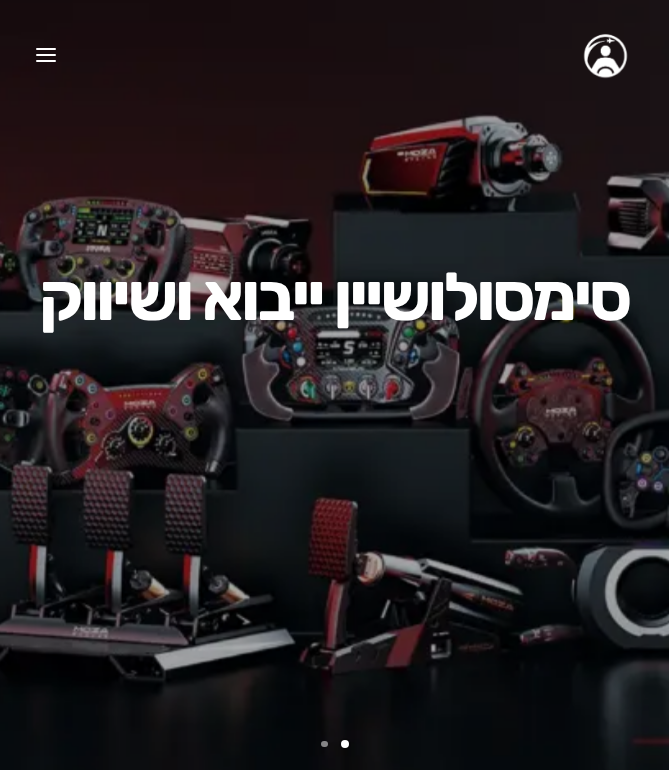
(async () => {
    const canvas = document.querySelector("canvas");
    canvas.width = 669;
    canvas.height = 770;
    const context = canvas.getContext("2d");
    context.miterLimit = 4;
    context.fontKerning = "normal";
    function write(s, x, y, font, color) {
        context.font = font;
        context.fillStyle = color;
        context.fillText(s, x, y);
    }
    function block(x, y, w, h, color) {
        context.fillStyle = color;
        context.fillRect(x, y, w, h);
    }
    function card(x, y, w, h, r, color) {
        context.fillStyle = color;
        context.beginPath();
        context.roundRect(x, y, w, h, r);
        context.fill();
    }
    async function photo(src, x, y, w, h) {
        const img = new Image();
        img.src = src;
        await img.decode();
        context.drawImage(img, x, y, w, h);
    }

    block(0, 0, 669, 770, "rgb(255, 255, 255)");
    await photo("media/2.png", 0, 0, 669, 770);
    await photo("media/1.png", 583, 33, 45, 46);
    card(36, 54, 20, 2, 1, "rgb(255, 255, 255)");
    card(36, 48, 20, 2, 1, "rgb(255, 255, 255)");
    card(36, 60, 20, 2, 1, "rgb(255, 255, 255)");
    context.letterSpacing = "-3.3px";
    context.direction = "rtl";
    write("סימסולושיין ייבוא ושיווק", 629, 320, "bold 66.75px Rubik", "rgb(255, 255, 255)");
    context.beginPath();
    context.arc(345, 744, 5, 0, Math.PI * 2);
    context.strokeStyle = "rgba(0, 0, 0, 0.2)";
    context.lineWidth = 2;
    context.stroke();
    context.beginPath();
    context.arc(345, 744, 4, 0, Math.PI * 2);
    context.fill();
    card(321, 741, 7, 6, 3, "rgba(255, 255, 255, 0.5)");
})();
